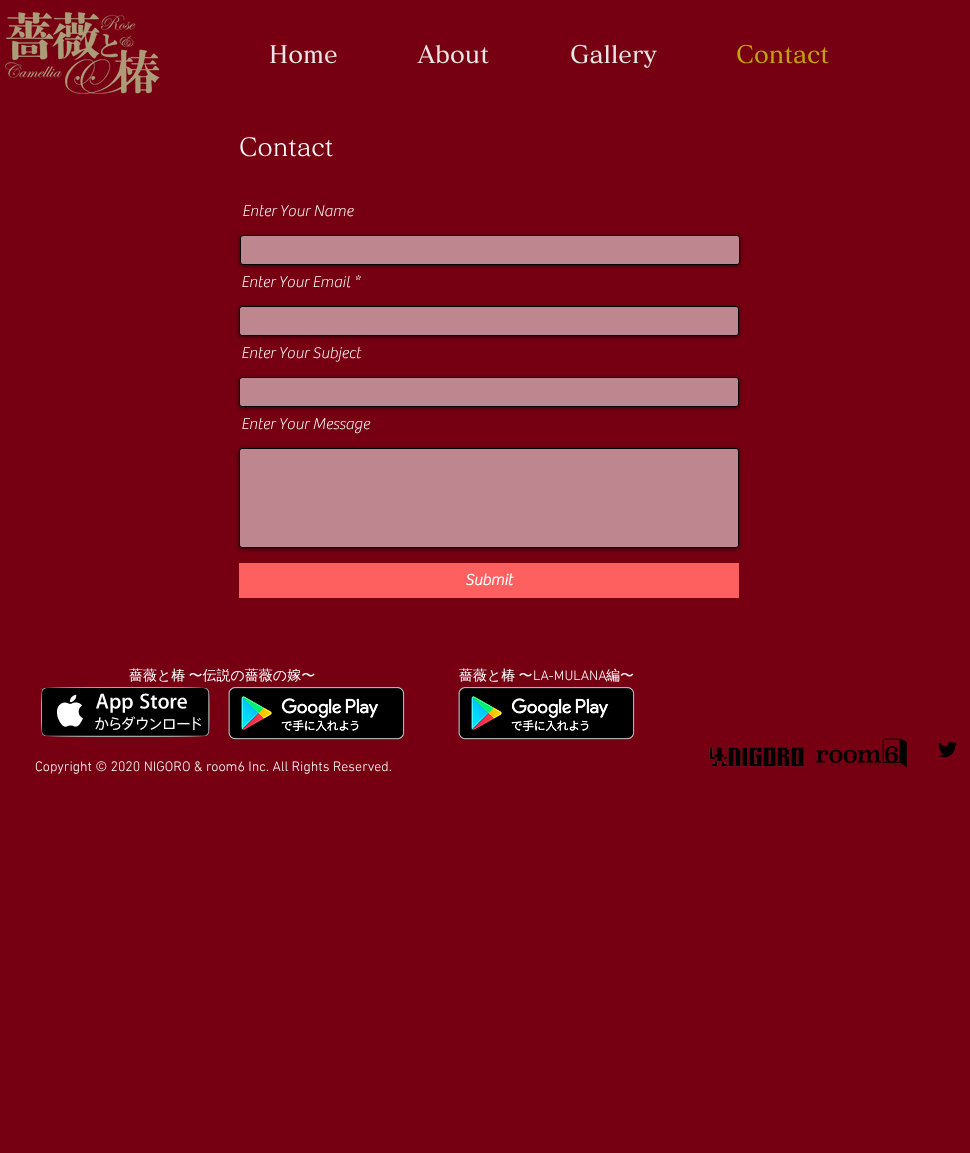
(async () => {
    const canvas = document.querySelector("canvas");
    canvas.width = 970;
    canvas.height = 1153;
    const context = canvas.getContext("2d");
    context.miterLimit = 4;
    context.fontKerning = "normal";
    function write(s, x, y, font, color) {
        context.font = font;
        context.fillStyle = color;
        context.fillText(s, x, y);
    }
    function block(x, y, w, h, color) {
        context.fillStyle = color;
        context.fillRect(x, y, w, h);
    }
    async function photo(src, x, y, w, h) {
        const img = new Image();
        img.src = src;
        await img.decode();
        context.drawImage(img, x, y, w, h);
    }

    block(0, 0, 970, 1153, "rgb(118, 0, 18)");
    await photo("media/1.png", 5, 12, 155, 82);
    write("Home", 269, 63, "600 24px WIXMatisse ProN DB", "rgb(232, 230, 230)");
    write("About", 418, 63, "600 24px WIXMatisse ProN DB", "rgb(232, 230, 230)");
    write("Gallery", 570, 63, "600 24px WIXMatisse ProN DB", "rgb(232, 230, 230)");
    write("Contact", 736, 63, "600 24px WIXMatisse ProN DB", "rgb(194, 164, 14)");
    write("Contact", 239, 156, "500 25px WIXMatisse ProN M", "rgb(255, 255, 255)");
    write("Enter Your Name", 242, 216, "100 16px 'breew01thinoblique'", "rgb(255, 255, 255)");
    context.save();
    context.beginPath();
    context.moveTo(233, 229);
    context.lineTo(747, 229);
    context.lineTo(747, 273);
    context.lineTo(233, 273);
    context.closePath();
    context.moveTo(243, 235);
    context.lineTo(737, 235);
    context.bezierCurveTo(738.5, 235, 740, 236.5, 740, 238);
    context.lineTo(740, 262);
    context.bezierCurveTo(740, 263.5, 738.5, 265, 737, 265);
    context.lineTo(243, 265);
    context.bezierCurveTo(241.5, 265, 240, 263.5, 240, 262);
    context.lineTo(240, 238);
    context.bezierCurveTo(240, 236.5, 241.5, 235, 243, 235);
    context.closePath();
    context.clip("evenodd");
    context.fillStyle = "rgba(0, 0, 0, 0.6)";
    context.filter = "blur(2px)";
    context.beginPath();
    context.roundRect(240, 236, 500, 30, 3);
    context.fill();
    context.filter = "none";
    context.restore();
    context.fillStyle = "rgba(255, 255, 255, 0.53)";
    context.beginPath();
    context.roundRect(240.5, 235.5, 499, 29, 2.5);
    context.fill();
    context.strokeStyle = "rgb(0, 0, 0)";
    context.stroke();
    write("Enter Your Email *", 241, 287, "100 16px 'breew01thinoblique'", "rgb(255, 255, 255)");
    context.save();
    context.beginPath();
    context.moveTo(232, 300);
    context.lineTo(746, 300);
    context.lineTo(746, 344);
    context.lineTo(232, 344);
    context.closePath();
    context.moveTo(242, 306);
    context.lineTo(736, 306);
    context.bezierCurveTo(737.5, 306, 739, 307.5, 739, 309);
    context.lineTo(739, 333);
    context.bezierCurveTo(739, 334.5, 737.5, 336, 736, 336);
    context.lineTo(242, 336);
    context.bezierCurveTo(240.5, 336, 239, 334.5, 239, 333);
    context.lineTo(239, 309);
    context.bezierCurveTo(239, 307.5, 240.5, 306, 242, 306);
    context.closePath();
    context.clip("evenodd");
    context.fillStyle = "rgba(0, 0, 0, 0.6)";
    context.filter = "blur(2px)";
    context.beginPath();
    context.roundRect(239, 307, 500, 30, 3);
    context.fill();
    context.filter = "none";
    context.restore();
    context.fillStyle = "rgba(255, 255, 255, 0.53)";
    context.beginPath();
    context.roundRect(239.5, 306.5, 499, 29, 2.5);
    context.fill();
    context.stroke();
    write("Enter Your Subject", 241, 358, "100 16px 'breew01thinoblique'", "rgb(255, 255, 255)");
    context.save();
    context.beginPath();
    context.moveTo(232, 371);
    context.lineTo(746, 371);
    context.lineTo(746, 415);
    context.lineTo(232, 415);
    context.closePath();
    context.moveTo(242, 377);
    context.lineTo(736, 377);
    context.bezierCurveTo(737.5, 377, 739, 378.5, 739, 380);
    context.lineTo(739, 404);
    context.bezierCurveTo(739, 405.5, 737.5, 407, 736, 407);
    context.lineTo(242, 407);
    context.bezierCurveTo(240.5, 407, 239, 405.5, 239, 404);
    context.lineTo(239, 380);
    context.bezierCurveTo(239, 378.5, 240.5, 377, 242, 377);
    context.closePath();
    context.clip("evenodd");
    context.fillStyle = "rgba(0, 0, 0, 0.6)";
    context.filter = "blur(2px)";
    context.beginPath();
    context.roundRect(239, 378, 500, 30, 3);
    context.fill();
    context.filter = "none";
    context.restore();
    context.fillStyle = "rgba(255, 255, 255, 0.53)";
    context.beginPath();
    context.roundRect(239.5, 377.5, 499, 29, 2.5);
    context.fill();
    context.stroke();
    write("Enter Your Message", 241, 429, "100 16px 'breew01thinoblique'", "rgb(255, 255, 255)");
    context.save();
    context.beginPath();
    context.moveTo(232, 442);
    context.lineTo(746, 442);
    context.lineTo(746, 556);
    context.lineTo(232, 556);
    context.closePath();
    context.moveTo(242, 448);
    context.lineTo(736, 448);
    context.bezierCurveTo(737.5, 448, 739, 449.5, 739, 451);
    context.lineTo(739, 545);
    context.bezierCurveTo(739, 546.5, 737.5, 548, 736, 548);
    context.lineTo(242, 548);
    context.bezierCurveTo(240.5, 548, 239, 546.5, 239, 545);
    context.lineTo(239, 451);
    context.bezierCurveTo(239, 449.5, 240.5, 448, 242, 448);
    context.closePath();
    context.clip("evenodd");
    context.fillStyle = "rgba(0, 0, 0, 0.6)";
    context.filter = "blur(2px)";
    context.beginPath();
    context.roundRect(239, 449, 500, 100, 3);
    context.fill();
    context.filter = "none";
    context.restore();
    context.fillStyle = "rgba(255, 255, 255, 0.53)";
    context.beginPath();
    context.roundRect(239.5, 448.5, 499, 99, 2.5);
    context.fill();
    context.stroke();
    block(239, 563, 500, 35, "rgb(254, 96, 96)");
    write("Submit", 465, 585, "bold 16px 'breew01thinoblique'", "rgb(255, 255, 255)");
    context.wordSpacing = "-1px";
    write("薔薇と椿 〜伝説の薔薇の嫁〜", 129, 680, "500 14px WenQuanYi Zen Hei", "rgb(255, 255, 255)");
    write("薔薇と椿 〜", 459, 680, "500 14px WenQuanYi Zen Hei", "rgb(255, 255, 255)");
    context.wordSpacing = "0px";
    write("LA-MULANA", 533, 680, "300 14px 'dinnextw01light'", "rgb(255, 255, 255)");
    write("編〜", 606, 680, "500 14px WenQuanYi Zen Hei", "rgb(255, 255, 255)");
    await photo("media/2.png", 41, 687, 169, 50);
    await photo("media/3.png", 228, 686, 177, 54);
    await photo("media/3.png", 458, 686, 177, 54);
    write("Copyright © 2020 NIGORO & room6 Inc. All Rights Reserved.", 35, 771, "300 14px 'dinnextw01light'", "rgb(255, 255, 255)");
    await photo("media/4.png", 709, 747, 95, 20);
    await photo("media/5.png", 816, 738, 91, 31);
    await photo("media/6.png", 938, 741, 19, 17);
})();
